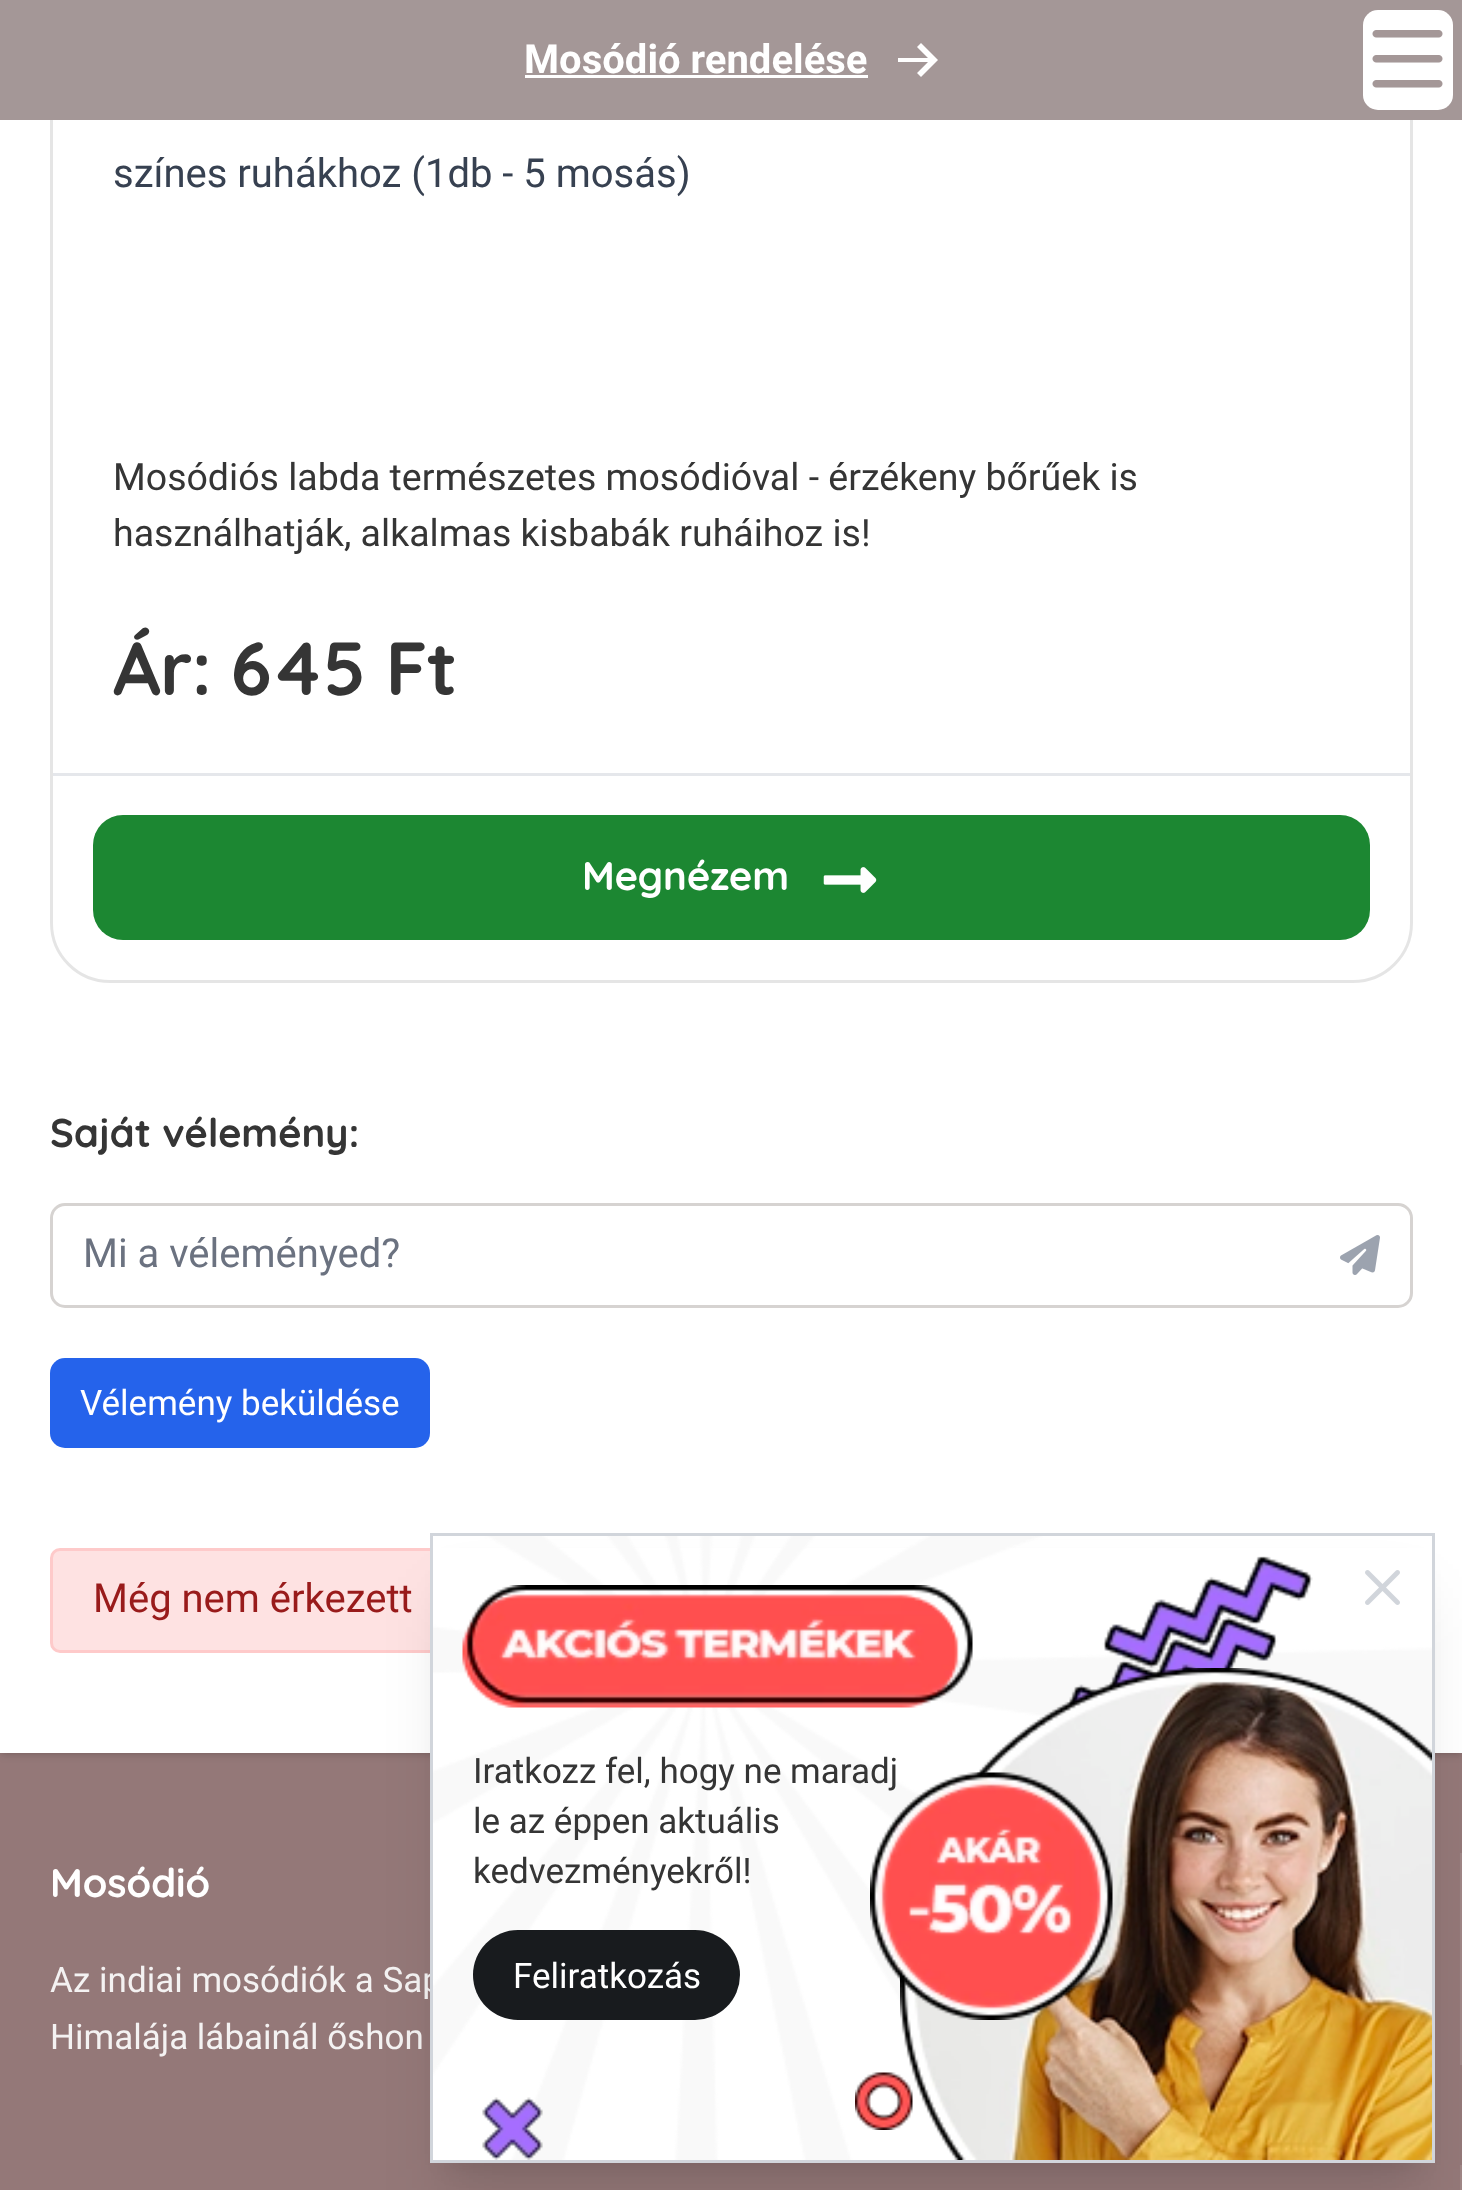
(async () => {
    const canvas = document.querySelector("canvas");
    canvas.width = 1462;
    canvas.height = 2190;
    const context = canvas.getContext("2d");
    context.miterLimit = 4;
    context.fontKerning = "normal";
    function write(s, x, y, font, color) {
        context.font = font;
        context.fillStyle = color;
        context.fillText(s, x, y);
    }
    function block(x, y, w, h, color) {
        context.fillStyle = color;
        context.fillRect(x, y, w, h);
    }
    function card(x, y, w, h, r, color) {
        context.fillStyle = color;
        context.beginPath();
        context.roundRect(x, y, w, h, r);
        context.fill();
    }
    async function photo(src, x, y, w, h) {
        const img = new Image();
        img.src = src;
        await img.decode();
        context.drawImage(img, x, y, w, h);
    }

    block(0, 0, 1462, 2190, "rgb(148, 120, 120)");
    context.fillStyle = "rgba(0, 0, 0, 0.1)";
    context.filter = "blur(2.5px)";
    context.beginPath();
    context.rect(3, -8, 1457, 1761);
    context.fill();
    context.filter = "none";
    context.filter = "blur(4px)";
    context.beginPath();
    context.rect(0, -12, 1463, 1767);
    context.fill();
    context.filter = "none";
    block(0, 120, 1462, 1633, "rgb(255, 255, 255)");
    context.beginPath();
    context.roundRect(51.5, -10.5, 1360, 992, 58.5);
    context.strokeStyle = "rgba(0, 0, 0, 0.1)";
    context.lineWidth = 3;
    context.stroke();
    block(0, 0, 1462, 120, "rgb(164, 151, 151)");
    write("Mosódió rendelése", 524, 73, "bold 40px Roboto", "rgb(255, 255, 255)");
    block(525, 75, 343, 3, "rgb(255, 255, 255)");
    context.beginPath();
    context.moveTo(921, 43);
    context.lineTo(917, 47);
    context.lineTo(928, 58);
    context.lineTo(898, 58);
    context.lineTo(898, 62);
    context.lineTo(928, 62);
    context.lineTo(917, 73);
    context.lineTo(921, 77);
    context.lineTo(938, 60);
    context.closePath();
    context.fill();
    card(1363, 10, 90, 100, 15, "rgb(255, 255, 255)");
    await photo("media/1.png", 1372, 30, 71, 58);
    write("színes ruhákhoz (1db - 5 mosás)", 113, 187, "40px Roboto", "rgb(55, 65, 81)");
    write("Mosódiós labda természetes mosódióval - érzékeny bőrűek is", 113, 490, "37.5px Roboto", "rgb(53, 53, 53)");
    write("használhatják, alkalmas kisbabák ruháihoz is!", 113, 546, "37.5px Roboto", "rgb(53, 53, 53)");
    context.letterSpacing = "-1px";
    write("Ár: 645 Ft", 113, 695, "bold 75px Quicksand", "rgb(53, 53, 53)");
    block(53, 773, 1357, 3, "rgb(229, 231, 235)");
    card(93, 815, 1277, 125, 30, "rgb(28, 135, 50)");
    context.letterSpacing = "0px";
    write("Megnézem", 582, 890, "bold 40px Quicksand", "rgb(255, 255, 255)");
    await photo("media/2.png", 823, 867, 54, 26);
    write("Saját vélemény:", 50, 1147, "bold 40px Quicksand", "rgb(53, 53, 53)");
    context.beginPath();
    context.roundRect(51.5, 1204.5, 1360, 102, 13.5);
    context.strokeStyle = "rgb(214, 211, 209)";
    context.stroke();
    write("Mi a véleményed?", 83, 1267, "40px Roboto", "rgb(107, 114, 128)");
    await photo("media/3.png", 1340, 1235, 40, 40);
    card(50, 1358, 380, 90, 15, "rgb(37, 99, 235)");
    write("Vélemény beküldése", 80, 1415, "35px Roboto", "rgb(255, 255, 255)");
    context.fillStyle = "rgb(254, 226, 226)";
    context.beginPath();
    context.roundRect(51.5, 1549.5, 870, 102, 8.5);
    context.fill();
    context.strokeStyle = "rgb(254, 202, 202)";
    context.stroke();
    write("Még nem érkezett", 93, 1612, "40px Roboto", "rgb(153, 27, 27)");
    block(1460, 1853, 2, 212, "rgb(159, 134, 134)");
    write("Mosódió", 50, 1897, "bold 40px Quicksand", "rgb(255, 255, 255)");
    write("Az indiai mosódiók a Sap", 50, 1992, "35px Roboto", "rgb(244, 242, 242)");
    write("Himalája lábainál őshon", 50, 2049, "35px Roboto", "rgb(244, 242, 242)");
    block(1460, 2165, 2, 25, "rgb(159, 134, 134)");
    context.fillStyle = "rgba(0, 0, 0, 0.1)";
    context.filter = "blur(12.5px)";
    context.beginPath();
    context.rect(448, 1570, 970, 595);
    context.fill();
    context.filter = "none";
    context.filter = "blur(31px)";
    context.beginPath();
    context.rect(445, 1598, 975, 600);
    context.fill();
    context.filter = "none";
    block(433, 1548, 999, 612, "rgb(255, 255, 255)");
    await photo("media/4.png", 433, 1536, 999, 624);
    context.strokeStyle = "rgb(209, 213, 219)";
    context.strokeRect(431.5, 1534.5, 1002, 627);
    await photo("media/5.png", 462, 1585, 511, 123);
    await photo("media/6.png", 1067, 1556, 246, 150);
    await photo("media/7.png", 1365, 1570, 35, 35);
    write("Iratkozz fel, hogy ne maradj", 473, 1783, "35px Roboto", "rgb(53, 53, 53)");
    write("le az éppen aktuális", 473, 1833, "35px Roboto", "rgb(53, 53, 53)");
    write("kedvezményekről!", 473, 1883, "35px Roboto", "rgb(53, 53, 53)");
    await photo("media/8.png", 900, 1668, 532, 492);
    card(473, 1930, 267, 90, 45, "rgb(24, 27, 30)");
    write("Feliratkozás", 513, 1988, "35px Roboto", "rgb(255, 255, 255)");
    await photo("media/9.png", 870, 1772, 243, 248);
    await photo("media/10.png", 482, 2097, 61, 63);
    await photo("media/11.png", 855, 2072, 58, 58);
})();
